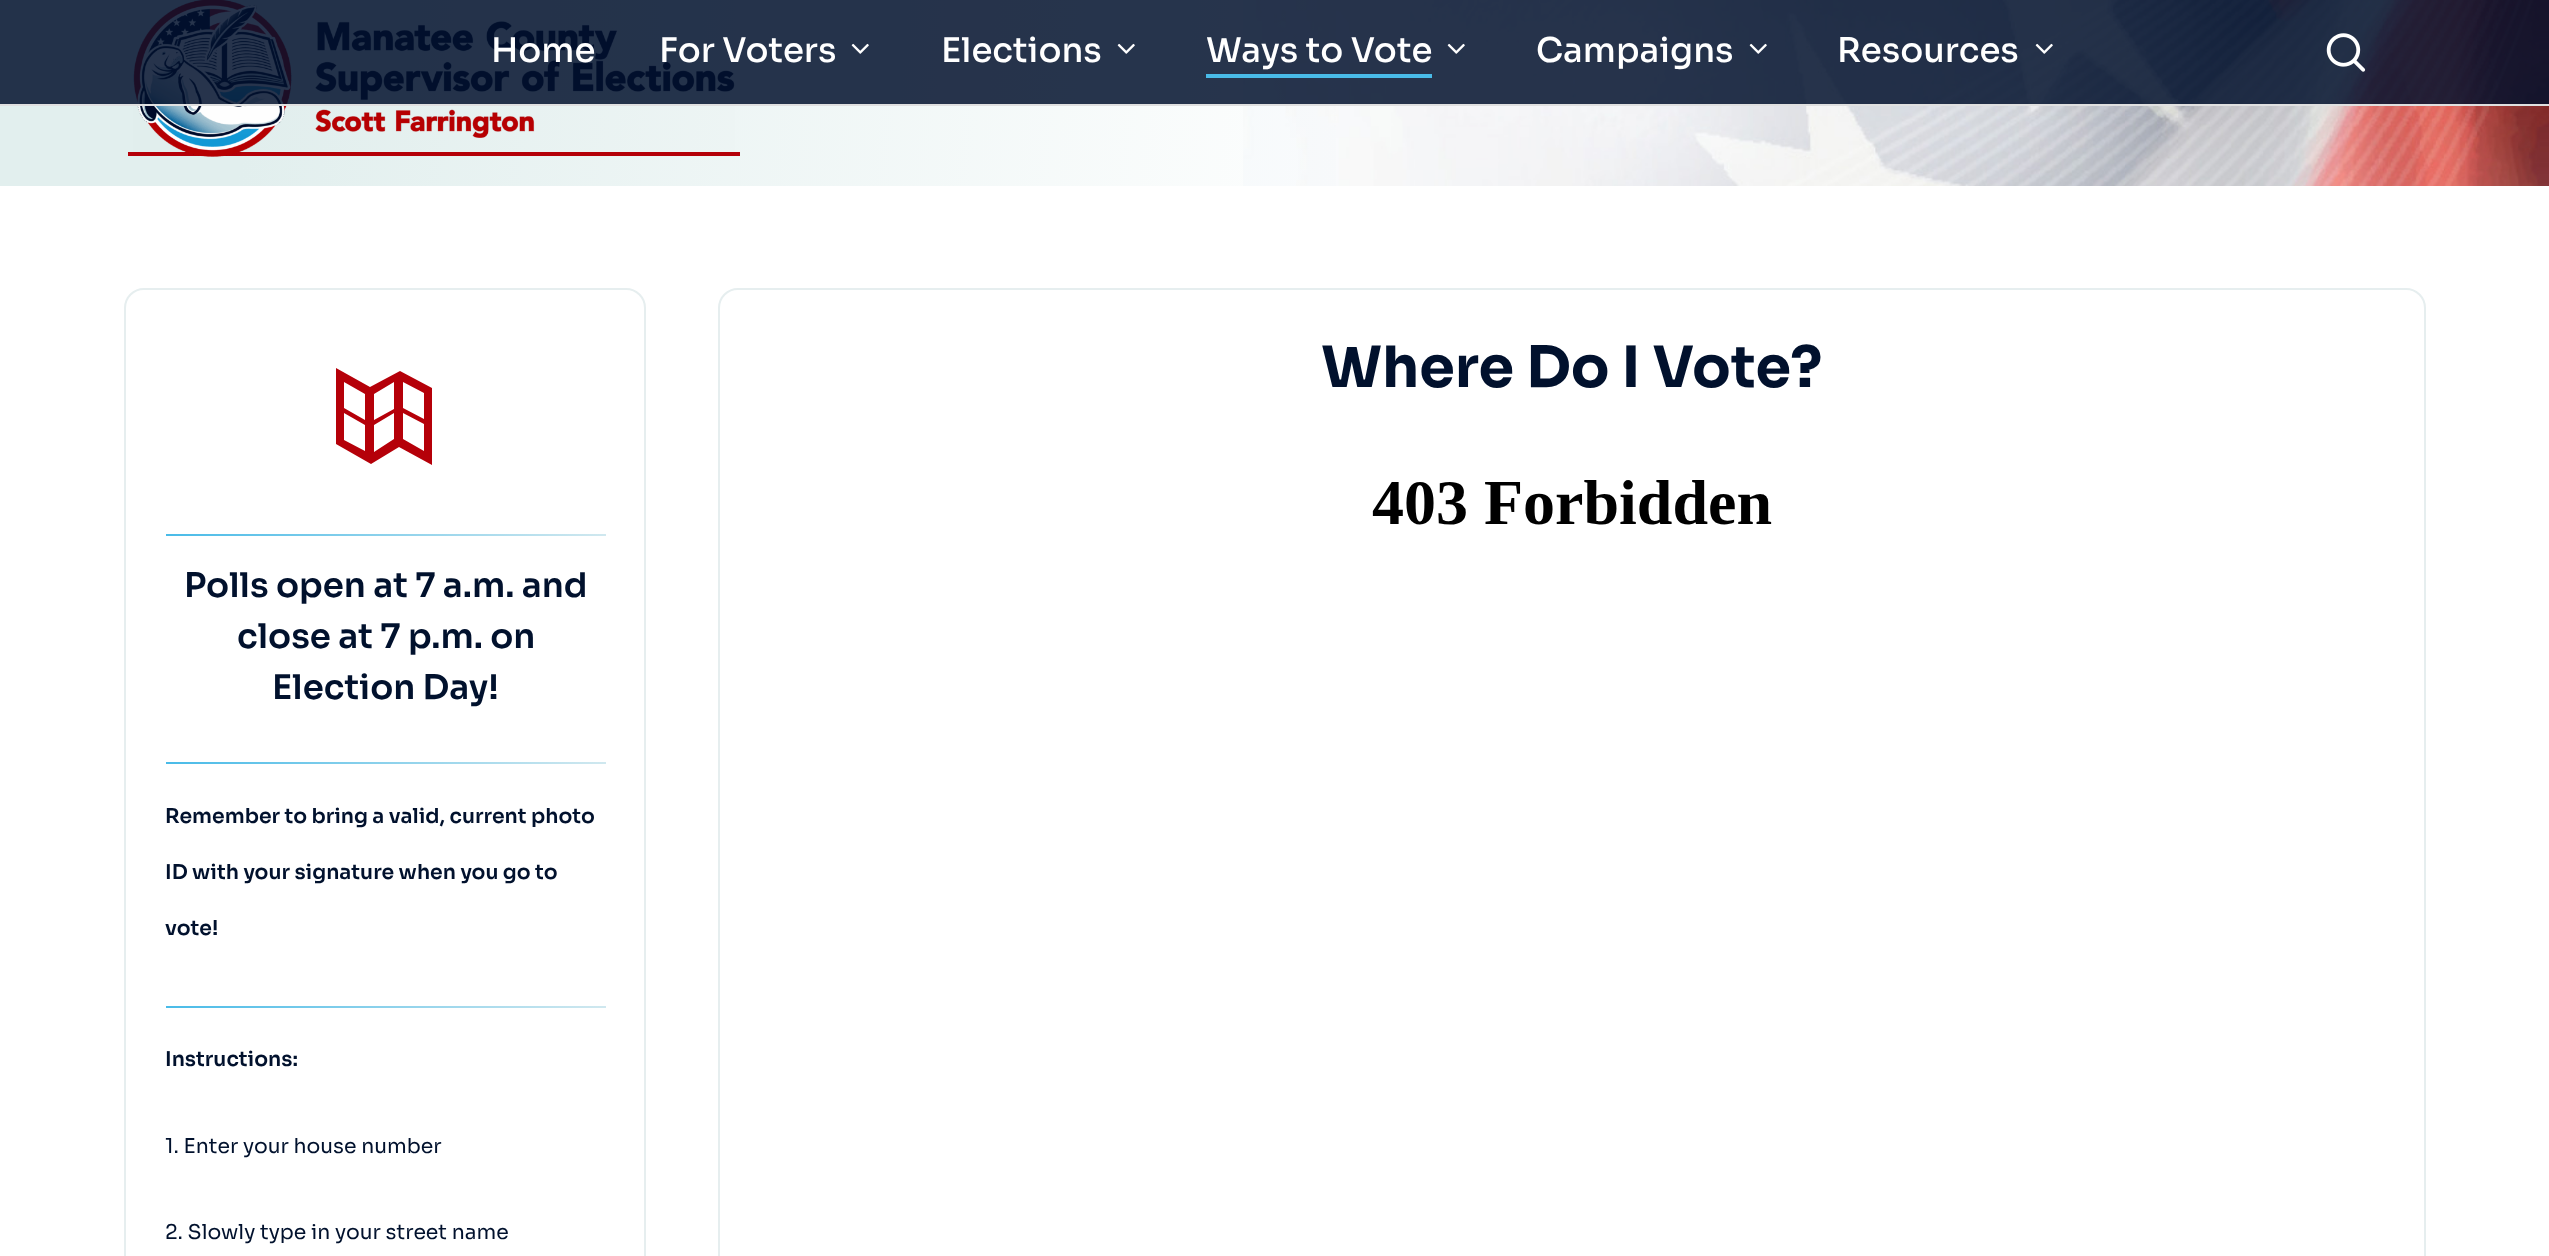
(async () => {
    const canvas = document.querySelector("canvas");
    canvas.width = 2549;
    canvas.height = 1256;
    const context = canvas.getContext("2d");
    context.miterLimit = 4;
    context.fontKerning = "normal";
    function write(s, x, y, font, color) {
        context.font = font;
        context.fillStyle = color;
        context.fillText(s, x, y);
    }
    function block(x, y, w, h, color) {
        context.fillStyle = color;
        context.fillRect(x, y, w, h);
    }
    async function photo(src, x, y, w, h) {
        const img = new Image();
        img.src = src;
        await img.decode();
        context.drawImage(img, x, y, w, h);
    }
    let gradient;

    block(0, 0, 2549, 1256, "rgb(255, 255, 255)");
    await photo("media/7.png", 1243, 0, 1306, 186);
    gradient = context.createLinearGradient(0.2, -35, 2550, 189);
    gradient.addColorStop(0.1, "rgb(226, 239, 238)");
    gradient.addColorStop(0.56, "rgba(226, 239, 238, 0)");
    context.fillStyle = gradient;
    context.fillRect(0, 0, 1336, 186);
    block(128, 152, 612, 4, "rgb(181, 0, 9)");
    await photo("media/8.png", 133, 0, 602, 157);
    block(0, 0, 2549, 104, "rgba(1, 17, 45, 0.85)");
    block(0, 104, 2549, 2, "rgb(224, 224, 224)");
    write("Home", 491, 62, "500 34px Sora", "rgb(255, 255, 255)");
    write("For Voters", 659, 62, "500 34px Sora", "rgb(255, 255, 255)");
    await photo("media/1.png", 851, 43, 18, 11);
    write("Elections", 941, 62, "500 34px Sora", "rgb(255, 255, 255)");
    await photo("media/2.png", 1117, 43, 18, 11);
    write("Ways to Vote", 1206, 62, "500 34px Sora", "rgb(255, 255, 255)");
    block(1206, 74, 226, 4, "rgb(73, 187, 232)");
    await photo("media/3.png", 1447, 43, 18, 11);
    write("Campaigns", 1536, 62, "500 34px Sora", "rgb(255, 255, 255)");
    await photo("media/4.png", 1749, 43, 18, 11);
    write("Resources", 1837, 62, "500 34px Sora", "rgb(255, 255, 255)");
    await photo("media/5.png", 2035, 43, 18, 11);
    await photo("media/6.png", 2326, 33, 40, 39);
    context.beginPath();
    context.roundRect(719, 289, 1706, 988, 19);
    context.strokeStyle = "rgb(230, 238, 239)";
    context.lineWidth = 2;
    context.stroke();
    write("Where Do I Vote?", 1321, 387, "bold 57px Sora", "rgb(1, 17, 45)");
    await photo("media/9.png", 1372, 480, 400, 45);
    context.beginPath();
    context.roundRect(125, 289, 520, 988, 19);
    context.stroke();
    context.fillStyle = "rgb(181, 0, 9)";
    context.beginPath();
    context.moveTo(400, 371);
    context.lineTo(370, 387);
    context.lineTo(336, 368);
    context.lineTo(336, 444);
    context.lineTo(371, 464);
    context.lineTo(399, 447);
    context.lineTo(432, 465);
    context.lineTo(432, 388);
    context.closePath();
    context.moveTo(424, 419);
    context.lineTo(403, 408);
    context.lineTo(403, 382);
    context.lineTo(424, 393);
    context.closePath();
    context.moveTo(374, 394);
    context.lineTo(394, 382);
    context.lineTo(394, 409);
    context.lineTo(374, 420);
    context.closePath();
    context.moveTo(374, 425);
    context.lineTo(394, 413);
    context.lineTo(394, 439);
    context.lineTo(374, 452);
    context.closePath();
    context.moveTo(365, 394);
    context.lineTo(365, 420);
    context.lineTo(344, 408);
    context.lineTo(344, 382);
    context.closePath();
    context.moveTo(344, 413);
    context.lineTo(365, 425);
    context.lineTo(365, 451);
    context.lineTo(344, 440);
    context.closePath();
    context.moveTo(403, 439);
    context.lineTo(403, 413);
    context.lineTo(424, 424);
    context.lineTo(424, 451);
    context.closePath();
    context.fill();
    gradient = context.createLinearGradient(166, 535, 606, 535);
    gradient.addColorStop(0, "rgb(73, 187, 232)");
    gradient.addColorStop(1, "rgb(208, 232, 239)");
    context.fillStyle = gradient;
    context.fillRect(166, 534, 440, 2);
    write("Polls open at 7 a.m. and", 184, 597, "600 34px Sora", "rgb(1, 17, 45)");
    write("close at 7 p.m. on", 237, 648, "600 34px Sora", "rgb(1, 17, 45)");
    write("Election Day!", 272, 699, "600 34px Sora", "rgb(1, 17, 45)");
    gradient = context.createLinearGradient(166, 763, 606, 763);
    gradient.addColorStop(0, "rgb(73, 187, 232)");
    gradient.addColorStop(1, "rgb(208, 232, 239)");
    context.fillStyle = gradient;
    context.fillRect(166, 762, 440, 2);
    write("Remember to bring a valid, current photo", 165, 823, "600 20.4px Sora", "rgb(1, 17, 45)");
    write("ID with your signature when you go to", 165, 879, "600 20.4px Sora", "rgb(1, 17, 45)");
    write("vote!", 165, 935, "600 20.4px Sora", "rgb(1, 17, 45)");
    gradient = context.createLinearGradient(166, 1007, 606, 1007);
    gradient.addColorStop(0, "rgb(73, 187, 232)");
    gradient.addColorStop(1, "rgb(208, 232, 239)");
    context.fillStyle = gradient;
    context.fillRect(166, 1006, 440, 2);
    write("Instructions:", 165, 1066, "600 20.4px Sora", "rgb(1, 17, 45)");
    write("1. Enter your house number", 165, 1153, "20.4px Sora", "rgb(1, 17, 45)");
    write("2. Slowly type in your street name", 165, 1239, "20.4px Sora", "rgb(1, 17, 45)");
})();
